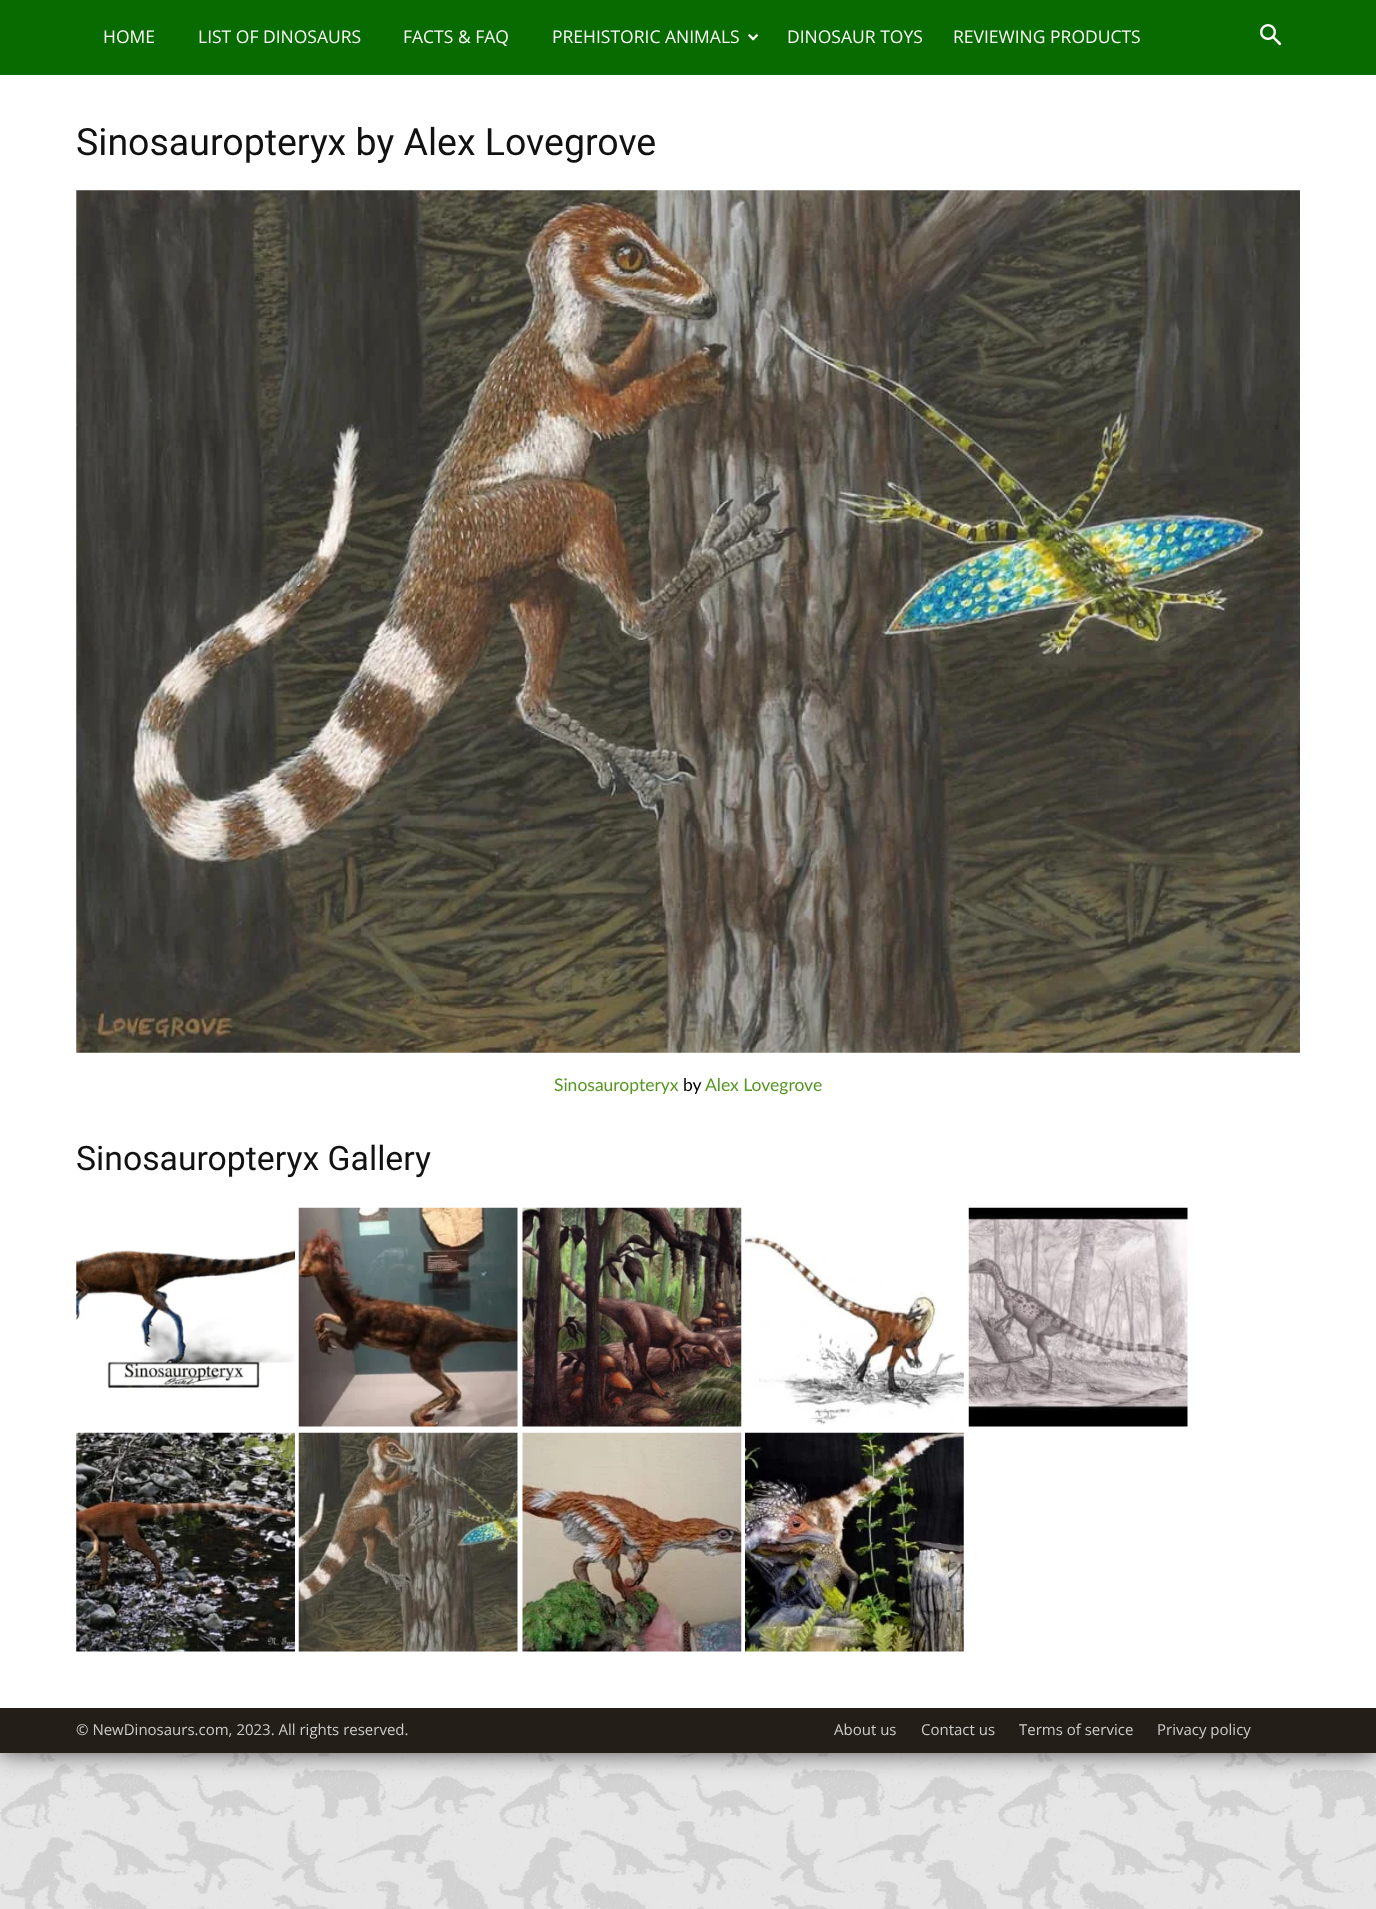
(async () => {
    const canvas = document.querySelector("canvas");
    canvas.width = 1376;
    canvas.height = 1909;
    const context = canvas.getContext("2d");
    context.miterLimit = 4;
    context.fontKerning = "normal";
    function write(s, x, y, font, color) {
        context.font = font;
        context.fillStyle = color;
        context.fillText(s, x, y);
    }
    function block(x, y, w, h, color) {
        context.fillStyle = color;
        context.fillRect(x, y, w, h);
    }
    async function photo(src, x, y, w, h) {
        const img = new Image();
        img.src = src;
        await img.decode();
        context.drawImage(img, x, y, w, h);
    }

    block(0, 0, 1376, 1909, "rgb(255, 255, 255)");
    await photo("media/1.png", 0, 1753, 1376, 156);
    context.fillStyle = "rgba(0, 0, 0, 0.65)";
    context.filter = "blur(12.5px)";
    context.beginPath();
    context.rect(0, -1, 1376, 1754);
    context.fill();
    context.filter = "none";
    block(0, 0, 1376, 75, "rgb(8, 107, 0)");
    write("HOME", 103, 43, "17.5px Open Sans", "rgb(252, 252, 252)");
    write("LIST OF DINOSAURS", 198, 43, "17.5px Open Sans", "rgb(252, 252, 252)");
    write("FACTS & FAQ", 403, 43, "17.5px Open Sans", "rgb(252, 252, 252)");
    write("PREHISTORIC ANIMALS", 552, 43, "17.5px Open Sans", "rgb(252, 252, 252)");
    await photo("media/2.png", 748, 34, 11, 7);
    write("DINOSAUR TOYS", 787, 43, "17.5px Open Sans", "rgb(252, 252, 252)");
    write("REVIEWING PRODUCTS", 953, 43, "17.5px Open Sans", "rgb(252, 252, 252)");
    await photo("media/3.png", 1260, 24, 22, 22);
    block(0, 75, 1376, 1633, "rgb(255, 255, 255)");
    write("Sinosauropteryx by Alex Lovegrove", 76, 155, "37.5px Roboto", "rgb(17, 17, 17)");
    await photo("media/4.png", 76, 190, 1224, 863);
    write("Sinosauropteryx", 554, 1091, "17.5px Lato", "rgb(86, 150, 34)");
    write("by", 683, 1091, "17.5px Lato", "rgb(0, 0, 0)");
    write("Alex Lovegrove", 705, 1091, "17.5px Lato", "rgb(86, 150, 34)");
    write("Sinosauropteryx Gallery", 76, 1170, "33.75px Roboto", "rgb(17, 17, 17)");
    await photo("media/5.png", 76, 1249, 219, 141);
    await photo("media/6.png", 298, 1207, 220, 220);
    await photo("media/7.png", 522, 1207, 220, 220);
    await photo("media/8.png", 745, 1235, 219, 190);
    await photo("media/9.png", 968, 1207, 220, 220);
    await photo("media/10.png", 76, 1432, 219, 220);
    await photo("media/11.png", 298, 1432, 220, 220);
    await photo("media/12.png", 522, 1432, 220, 220);
    await photo("media/13.png", 745, 1432, 219, 220);
    block(0, 1708, 1376, 45, "rgb(35, 30, 24)");
    write("© NewDinosaurs.com, 2023. All rights reserved.", 76, 1735, "15px Open Sans", "rgb(204, 204, 204)");
    write("About us", 834, 1735, "15px Open Sans", "rgb(204, 204, 204)");
    write("Contact us", 921, 1735, "15px Open Sans", "rgb(204, 204, 204)");
    write("Terms of service", 1019, 1735, "15px Open Sans", "rgb(204, 204, 204)");
    write("Privacy policy", 1157, 1735, "15px Open Sans", "rgb(204, 204, 204)");
})();
